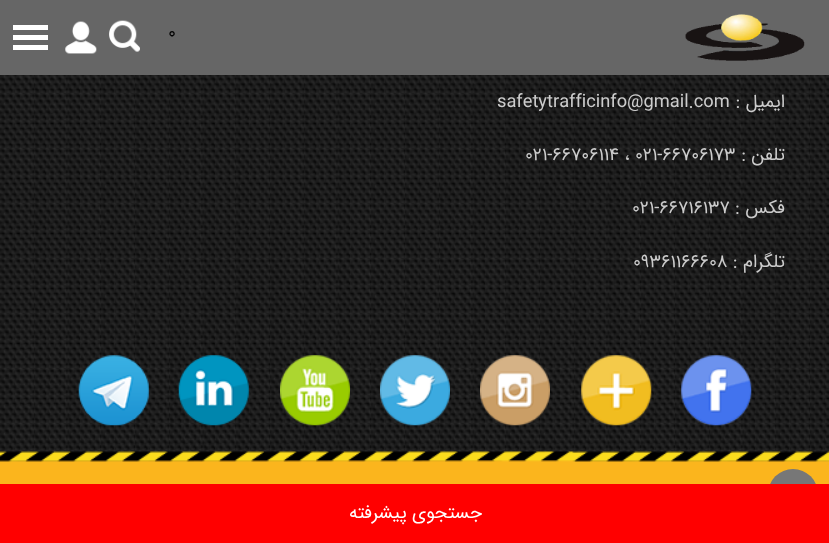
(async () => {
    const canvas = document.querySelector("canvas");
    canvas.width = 829;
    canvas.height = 543;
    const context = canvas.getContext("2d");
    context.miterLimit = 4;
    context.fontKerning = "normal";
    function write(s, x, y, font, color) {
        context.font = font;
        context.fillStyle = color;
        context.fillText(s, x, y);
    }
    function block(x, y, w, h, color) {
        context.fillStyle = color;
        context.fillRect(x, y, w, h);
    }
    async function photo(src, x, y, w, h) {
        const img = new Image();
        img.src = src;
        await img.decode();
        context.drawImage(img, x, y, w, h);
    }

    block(0, 0, 829, 543, "rgb(255, 255, 255)");
    block(0, 0, 829, 75, "rgb(102, 102, 102)");
    await photo("media/1.png", 65, 21, 32, 33);
    await photo("media/2.png", 109, 20, 31, 32);
    block(13, 25, 35, 5, "rgb(255, 255, 255)");
    block(13, 35, 35, 5, "rgb(255, 255, 255)");
    block(13, 45, 35, 5, "rgb(255, 255, 255)");
    write("0", 168, 38, "18.3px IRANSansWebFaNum", "rgb(0, 0, 0)");
    await photo("media/3.png", 685, 14, 120, 47);
    await photo("media/4.png", 0, 75, 829, 377);
    write("safetytrafficinfo@gmail.com", 497, 107, "18.3px IRANSansWebFaNum", "rgb(204, 204, 204)");
    context.direction = "rtl";
    write("ایمیل :", 785, 107, "18.3px IRANSansWebFaNum", "rgb(204, 204, 204)");
    context.direction = "ltr";
    write("021-66706114 ، 021-66706173", 525, 160, "18.3px IRANSansWebFaNum", "rgb(204, 204, 204)");
    context.direction = "rtl";
    write("تلفن :", 785, 160, "18.3px IRANSansWebFaNum", "rgb(204, 204, 204)");
    context.direction = "ltr";
    write("021-66716137", 632, 213, "18.3px IRANSansWebFaNum", "rgb(204, 204, 204)");
    context.direction = "rtl";
    write("فکس :", 785, 213, "18.3px IRANSansWebFaNum", "rgb(204, 204, 204)");
    context.direction = "ltr";
    write("09361166608", 633, 267, "18.3px IRANSansWebFaNum", "rgb(204, 204, 204)");
    context.direction = "rtl";
    write("تلگرام :", 785, 267, "18.3px IRANSansWebFaNum", "rgb(204, 204, 204)");
    await photo("media/5.png", 78, 355, 71, 71);
    await photo("media/6.png", 178, 355, 71, 71);
    await photo("media/7.png", 280, 355, 70, 71);
    await photo("media/8.png", 380, 355, 70, 71);
    await photo("media/9.png", 480, 355, 70, 71);
    await photo("media/10.png", 581, 355, 71, 71);
    await photo("media/11.png", 681, 355, 71, 71);
    await photo("media/12.png", 0, 451, 829, 33);
    context.fillStyle = "rgb(119, 119, 119)";
    context.beginPath();
    context.arc(793, 494, 25, 0, Math.PI * 2);
    context.fill();
    block(0, 484, 829, 59, "rgb(255, 0, 0)");
    write("جستجوی پیشرفته", 482, 518, "18.3px IRANSansWebFaNum", "rgb(255, 255, 255)");
})();
